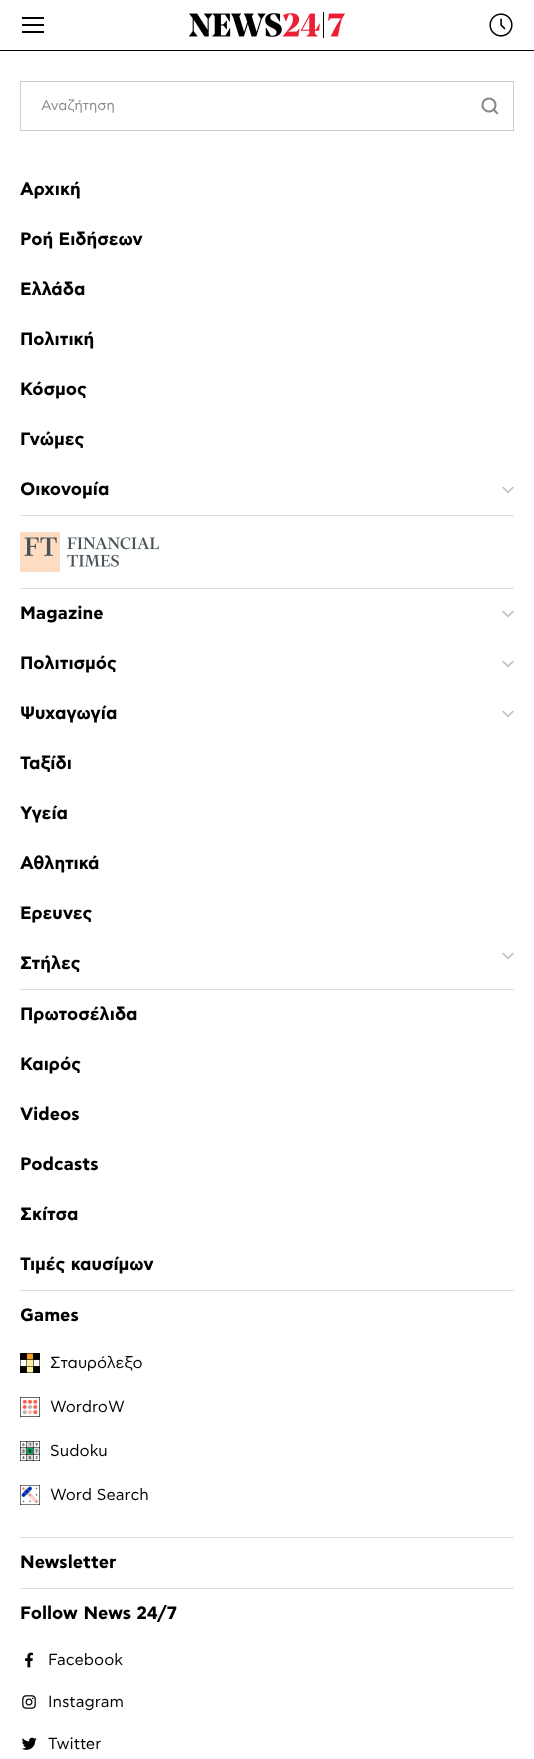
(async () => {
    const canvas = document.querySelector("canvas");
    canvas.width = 534;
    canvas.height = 1759;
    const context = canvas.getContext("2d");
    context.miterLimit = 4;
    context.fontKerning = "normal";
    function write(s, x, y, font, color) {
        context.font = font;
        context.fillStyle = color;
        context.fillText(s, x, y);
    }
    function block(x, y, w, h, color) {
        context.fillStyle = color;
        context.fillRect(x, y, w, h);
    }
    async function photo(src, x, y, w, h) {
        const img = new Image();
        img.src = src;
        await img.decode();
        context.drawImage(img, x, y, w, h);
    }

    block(0, 0, 534, 1759, "rgb(255, 255, 255)");
    block(0, 50, 534, 1, "rgb(0, 0, 0)");
    block(22, 17, 22, 2, "rgb(0, 0, 0)");
    block(22, 24, 22, 2, "rgb(0, 0, 0)");
    block(22, 31, 22, 2, "rgb(0, 0, 0)");
    await photo("media/1.png", 189, 12, 156, 26);
    await photo("media/2.png", 489, 13, 24, 24);
    context.strokeStyle = "rgb(204, 204, 204)";
    context.strokeRect(20.5, 81.5, 493, 49);
    write("Αναζήτηση", 41, 110, "14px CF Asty", "rgb(136, 136, 136)");
    await photo("media/3.png", 481, 97, 18, 18);
    block(20, 989, 494, 1, "rgb(221, 221, 221)");
    write("Αρχική", 20, 195, "bold 18px CF Asty", "rgb(0, 0, 0)");
    write("Ροή Ειδήσεων", 20, 245, "bold 18px CF Asty", "rgb(0, 0, 0)");
    write("Ελλάδα", 20, 295, "bold 18px CF Asty", "rgb(0, 0, 0)");
    write("Πολιτική", 20, 345, "bold 18px CF Asty", "rgb(0, 0, 0)");
    write("Κόσμος", 20, 395, "bold 18px CF Asty", "rgb(0, 0, 0)");
    write("Γνώμες", 20, 445, "bold 18px CF Asty", "rgb(0, 0, 0)");
    write("Οικονομία", 20, 495, "bold 18px CF Asty", "rgb(0, 0, 0)");
    await photo("media/4.png", 502, 486, 12, 8);
    block(20, 515, 494, 1, "rgb(221, 221, 221)");
    block(20, 588, 494, 1, "rgb(221, 221, 221)");
    await photo("media/5.png", 20, 532, 139, 40);
    write("Magazine", 20, 619, "bold 18px CF Asty", "rgb(0, 0, 0)");
    await photo("media/4.png", 502, 610, 12, 8);
    write("Πολιτισμός", 20, 669, "bold 18px CF Asty", "rgb(0, 0, 0)");
    await photo("media/4.png", 502, 660, 12, 8);
    write("Ψυχαγωγία", 20, 719, "bold 18px CF Asty", "rgb(0, 0, 0)");
    await photo("media/4.png", 502, 710, 12, 8);
    write("Ταξίδι", 20, 769, "bold 18px CF Asty", "rgb(0, 0, 0)");
    write("Υγεία", 20, 819, "bold 18px CF Asty", "rgb(0, 0, 0)");
    write("Αθλητικά", 20, 869, "bold 18px CF Asty", "rgb(0, 0, 0)");
    context.save();
    context.beginPath();
    context.rect(20, 81, 494, 1678);
    context.clip();
    write("Έρευνες", 20, 919, "bold 18px CF Asty", "rgb(0, 0, 0)");
    context.restore();
    write("Στήλες", 20, 969, "bold 18px CF Asty", "rgb(0, 0, 0)");
    await photo("media/4.png", 502, 952, 12, 8);
    block(20, 1290, 494, 1, "rgb(221, 221, 221)");
    write("Πρωτοσέλιδα", 20, 1020, "bold 18px CF Asty", "rgb(0, 0, 0)");
    write("Καιρός", 20, 1070, "bold 18px CF Asty", "rgb(0, 0, 0)");
    write("Videos", 20, 1120, "bold 18px CF Asty", "rgb(0, 0, 0)");
    write("Podcasts", 20, 1170, "bold 18px CF Asty", "rgb(0, 0, 0)");
    write("Σκίτσα", 20, 1220, "bold 18px CF Asty", "rgb(0, 0, 0)");
    write("Τιμές καυσίμων", 20, 1270, "bold 18px CF Asty", "rgb(0, 0, 0)");
    block(20, 1537, 494, 1, "rgb(221, 221, 221)");
    write("Games", 20, 1321, "bold 18px CF Asty", "rgb(0, 0, 0)");
    await photo("media/6.png", 20, 1353, 20, 20);
    write("Σταυρόλεξο", 50, 1368, "16px CF Asty", "rgb(0, 0, 0)");
    await photo("media/7.png", 20, 1397, 20, 20);
    write("WordroW", 50, 1412, "16px CF Asty", "rgb(0, 0, 0)");
    await photo("media/8.png", 20, 1441, 20, 20);
    write("Sudoku", 50, 1456, "16px CF Asty", "rgb(0, 0, 0)");
    await photo("media/9.png", 20, 1485, 20, 20);
    write("Word Search", 50, 1500, "16px CF Asty", "rgb(0, 0, 0)");
    block(20, 1588, 494, 1, "rgb(221, 221, 221)");
    write("Newsletter", 20, 1568, "bold 18px CF Asty", "rgb(0, 0, 0)");
    write("Follow News 24/7", 20, 1619, "bold 18px CF Asty", "rgb(0, 0, 0)");
    await photo("media/10.png", 25, 1652, 8, 16);
    write("Facebook", 48, 1665, "16px CF Asty", "rgb(0, 0, 0)");
    await photo("media/11.png", 22, 1695, 14, 14);
    write("Instagram", 48, 1707, "16px CF Asty", "rgb(0, 0, 0)");
    await photo("media/12.png", 21, 1737, 16, 13);
    write("Twitter", 48, 1749, "16px CF Asty", "rgb(0, 0, 0)");
})();
